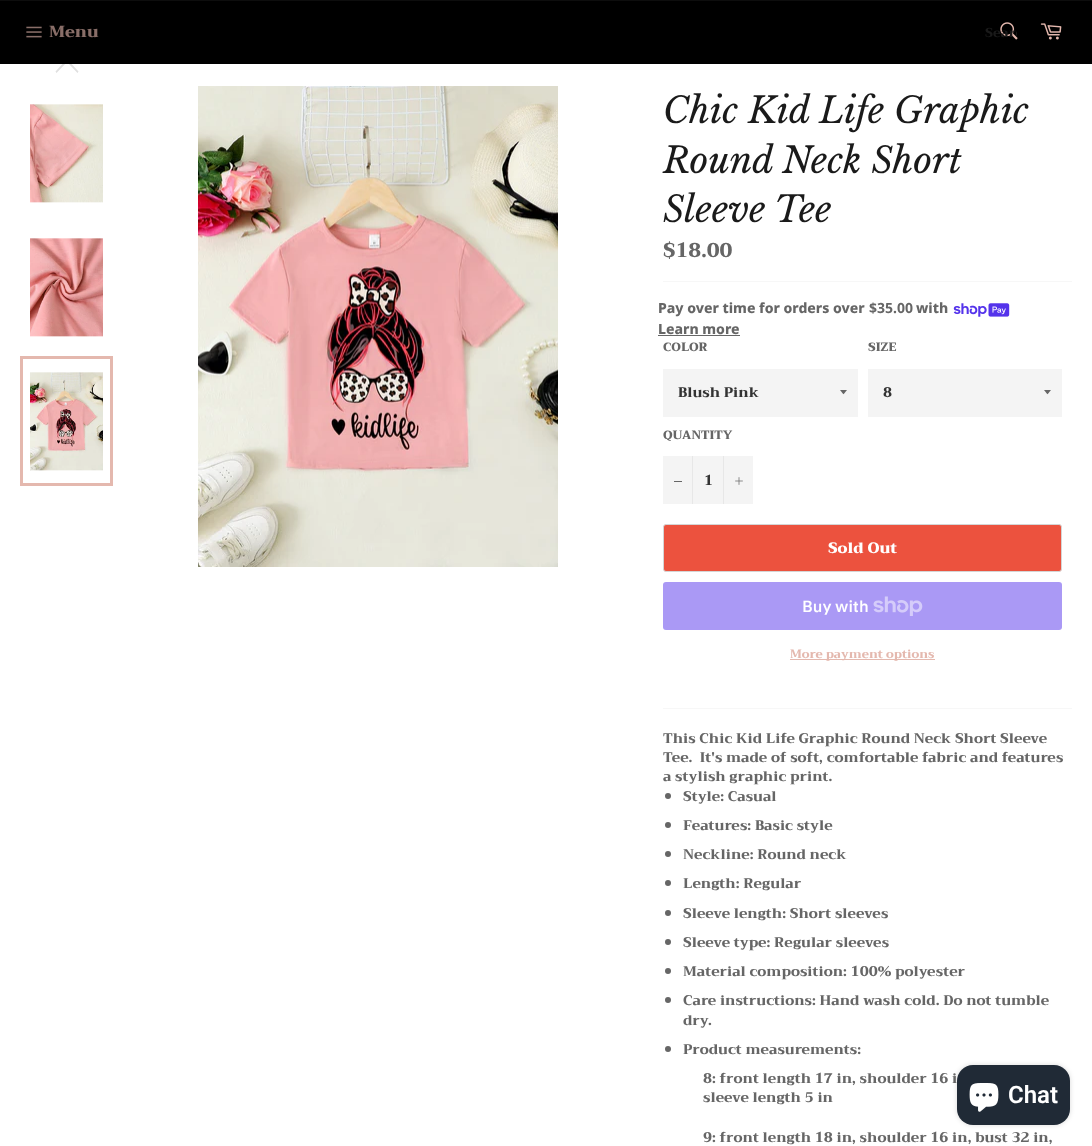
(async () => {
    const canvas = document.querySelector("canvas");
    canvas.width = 1092;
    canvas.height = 1146;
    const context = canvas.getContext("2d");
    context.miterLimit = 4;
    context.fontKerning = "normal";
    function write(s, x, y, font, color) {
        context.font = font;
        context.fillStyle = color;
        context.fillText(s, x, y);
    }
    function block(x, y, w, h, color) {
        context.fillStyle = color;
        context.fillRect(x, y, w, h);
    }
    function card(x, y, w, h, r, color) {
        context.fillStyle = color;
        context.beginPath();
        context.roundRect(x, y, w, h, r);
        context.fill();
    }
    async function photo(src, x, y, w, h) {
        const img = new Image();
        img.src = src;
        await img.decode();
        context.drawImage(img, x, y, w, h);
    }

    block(0, 0, 1092, 1146, "rgb(255, 255, 255)");
    context.fillStyle = "rgb(224, 224, 224)";
    context.beginPath();
    context.moveTo(77.5, 73);
    context.lineTo(78.5, 71.5);
    context.lineTo(67, 59);
    context.lineTo(55.5, 71.5);
    context.lineTo(56.5, 73);
    context.lineTo(67, 62);
    context.closePath();
    context.fill();
    block(0, 1, 1092, 63, "rgb(0, 0, 0)");
    block(0, 0, 1092, 1, "rgb(13, 13, 13)");
    await photo("media/1.png", 26, 26, 16, 12);
    write("Menu", 49, 37, "900 16px Trirong", "rgb(137, 110, 104)");
    await photo("media/2.png", 1000, 22, 18, 18);
    context.save();
    context.beginPath();
    context.rect(985, 21, 32, 23);
    context.clip();
    write("Searc", 985, 37, "800 13px Trirong", "rgb(26, 26, 26)");
    context.restore();
    await photo("media/3.png", 1040, 23, 22, 17);
    await photo("media/4.png", 30, 104, 73, 99);
    await photo("media/5.png", 30, 238, 73, 99);
    await photo("media/6.png", 30, 372, 73, 99);
    context.strokeStyle = "rgb(228, 184, 174)";
    context.lineWidth = 3;
    context.strokeRect(21.5, 357.5, 90, 127);
    await photo("media/7.png", 198, 86, 360, 481);
    write("Chic Kid Life Graphic", 663, 123, "italic 36px Libre Baskerville", "rgb(26, 26, 26)");
    write("Round Neck Short", 663, 173, "italic 36px Libre Baskerville", "rgb(26, 26, 26)");
    write("Sleeve Tee", 663, 222, "italic 36px Libre Baskerville", "rgb(26, 26, 26)");
    write("$18.00", 663, 257, "800 20px Trirong", "rgb(102, 102, 102)");
    block(663, 281, 409, 1, "rgb(247, 247, 247)");
    write("Pay over time for orders over", 658, 313, "800 14px Noto Sans", "rgb(102, 102, 102)");
    write("$35.00", 869, 313, "bold 14px Noto Sans", "rgb(102, 102, 102)");
    write("with", 916, 313, "800 14px Noto Sans", "rgb(102, 102, 102)");
    await photo("media/8.png", 953, 303, 57, 14);
    write("Learn more", 658, 334, "800 14px Noto Sans", "rgb(102, 102, 102)");
    block(658, 335, 82, 1, "rgb(102, 102, 102)");
    write("COLOR", 663, 351, "900 12px Trirong", "rgb(102, 102, 102)");
    block(663, 369, 195, 48, "rgb(244, 244, 244)");
    context.fillStyle = "rgb(102, 102, 102)";
    context.beginPath();
    context.moveTo(840, 390);
    context.bezierCurveTo(844.5, 395.5, 842.5, 395.5, 847, 390);
    context.closePath();
    context.fill();
    write("Blush Pink", 678, 397, "800 14px Trirong", "rgb(51, 51, 51)");
    write("SIZE", 868, 351, "900 12px Trirong", "rgb(102, 102, 102)");
    block(868, 369, 194, 48, "rgb(244, 244, 244)");
    context.fillStyle = "rgb(102, 102, 102)";
    context.beginPath();
    context.moveTo(1044, 390);
    context.bezierCurveTo(1048.5, 395.5, 1046.5, 395.5, 1051, 390);
    context.closePath();
    context.fill();
    write("8", 883, 397, "800 14px Trirong", "rgb(51, 51, 51)");
    write("QUANTITY", 663, 439, "900 12px Trirong", "rgb(102, 102, 102)");
    block(663, 456, 90, 48, "rgb(244, 244, 244)");
    block(692, 456, 1, 48, "rgb(231, 231, 231)");
    block(674, 481, 8, 1, "rgb(102, 102, 102)");
    write("1", 704, 485, "800 14px Trirong", "rgb(51, 51, 51)");
    block(723, 456, 1, 48, "rgb(231, 231, 231)");
    await photo("media/9.png", 735, 477, 8, 8);
    context.fillStyle = "rgb(236, 82, 62)";
    context.beginPath();
    context.roundRect(663.5, 524.5, 398, 47, 2.5);
    context.fill();
    context.strokeStyle = "rgb(213, 213, 213)";
    context.lineWidth = 1;
    context.stroke();
    write("Sold Out", 828, 553, "900 15px Trirong", "rgb(255, 255, 255)");
    card(663, 582, 399, 48, 3, "rgb(170, 153, 245)");
    write("Buy with", 802, 612, "600 16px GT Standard", "rgb(255, 255, 255)");
    await photo("media/10.png", 873, 596, 50, 20);
    block(790, 659, 145, 1, "rgb(228, 184, 174)");
    write("More payment options", 790, 658, "800 12px Trirong", "rgb(228, 184, 174)");
    block(663, 708, 409, 1, "rgb(247, 247, 247)");
    write("This Chic Kid Life Graphic Round Neck Short Sleeve", 663, 743, "800 14px Trirong", "rgb(102, 102, 102)");
    write("Tee.  It's made of soft, comfortable fabric and features", 663, 762, "800 14px Trirong", "rgb(102, 102, 102)");
    write("a stylish graphic print.", 663, 781, "800 14px Trirong", "rgb(102, 102, 102)");
    context.beginPath();
    context.arc(668, 796, 3, 0, Math.PI * 2);
    context.fill();
    write("Style: Casual", 683, 801, "800 14px Trirong", "rgb(102, 102, 102)");
    context.beginPath();
    context.arc(668, 825, 3, 0, Math.PI * 2);
    context.fill();
    write("Features: Basic style", 683, 830, "800 14px Trirong", "rgb(102, 102, 102)");
    context.beginPath();
    context.arc(668, 854, 3, 0, Math.PI * 2);
    context.fill();
    write("Neckline: Round neck", 683, 859, "800 14px Trirong", "rgb(102, 102, 102)");
    context.beginPath();
    context.arc(668, 883, 3, 0, Math.PI * 2);
    context.fill();
    write("Length: Regular", 683, 888, "800 14px Trirong", "rgb(102, 102, 102)");
    context.beginPath();
    context.arc(668, 913, 3, 0, Math.PI * 2);
    context.fill();
    write("Sleeve length: Short sleeves", 683, 918, "800 14px Trirong", "rgb(102, 102, 102)");
    context.beginPath();
    context.arc(668, 942, 3, 0, Math.PI * 2);
    context.fill();
    write("Sleeve type: Regular sleeves", 683, 947, "800 14px Trirong", "rgb(102, 102, 102)");
    context.beginPath();
    context.arc(668, 971, 3, 0, Math.PI * 2);
    context.fill();
    write("Material composition: 100% polyester", 683, 976, "800 14px Trirong", "rgb(102, 102, 102)");
    context.beginPath();
    context.arc(668, 1000, 3, 0, Math.PI * 2);
    context.fill();
    write("Care instructions: Hand wash cold. Do not tumble", 683, 1005, "800 14px Trirong", "rgb(102, 102, 102)");
    write("dry.", 683, 1025, "800 14px Trirong", "rgb(102, 102, 102)");
    context.beginPath();
    context.arc(668, 1049, 3, 0, Math.PI * 2);
    context.fill();
    write("Product measurements:", 683, 1054, "800 14px Trirong", "rgb(102, 102, 102)");
    write("8: front length 17 in, shoulder 16 i", 703, 1083, "800 14px Trirong", "rgb(102, 102, 102)");
    write("sleeve length 5 in", 703, 1102, "800 14px Trirong", "rgb(102, 102, 102)");
    write("9: front length 18 in, shoulder 16 in, bust 32 in,", 703, 1142, "800 14px Trirong", "rgb(102, 102, 102)");
    context.fillStyle = "rgba(0, 0, 0, 0.15)";
    context.filter = "blur(2.5px)";
    context.beginPath();
    context.roundRect(957, 1065, 113, 60, 16);
    context.fill();
    context.filter = "none";
    card(957, 1065, 113, 60, 16, "rgb(32, 42, 54)");
    await photo("media/11.png", 969, 1083, 30, 29);
    write("Chat", 1008, 1103, "600 24px Roboto", "rgb(255, 255, 255)");
})();
